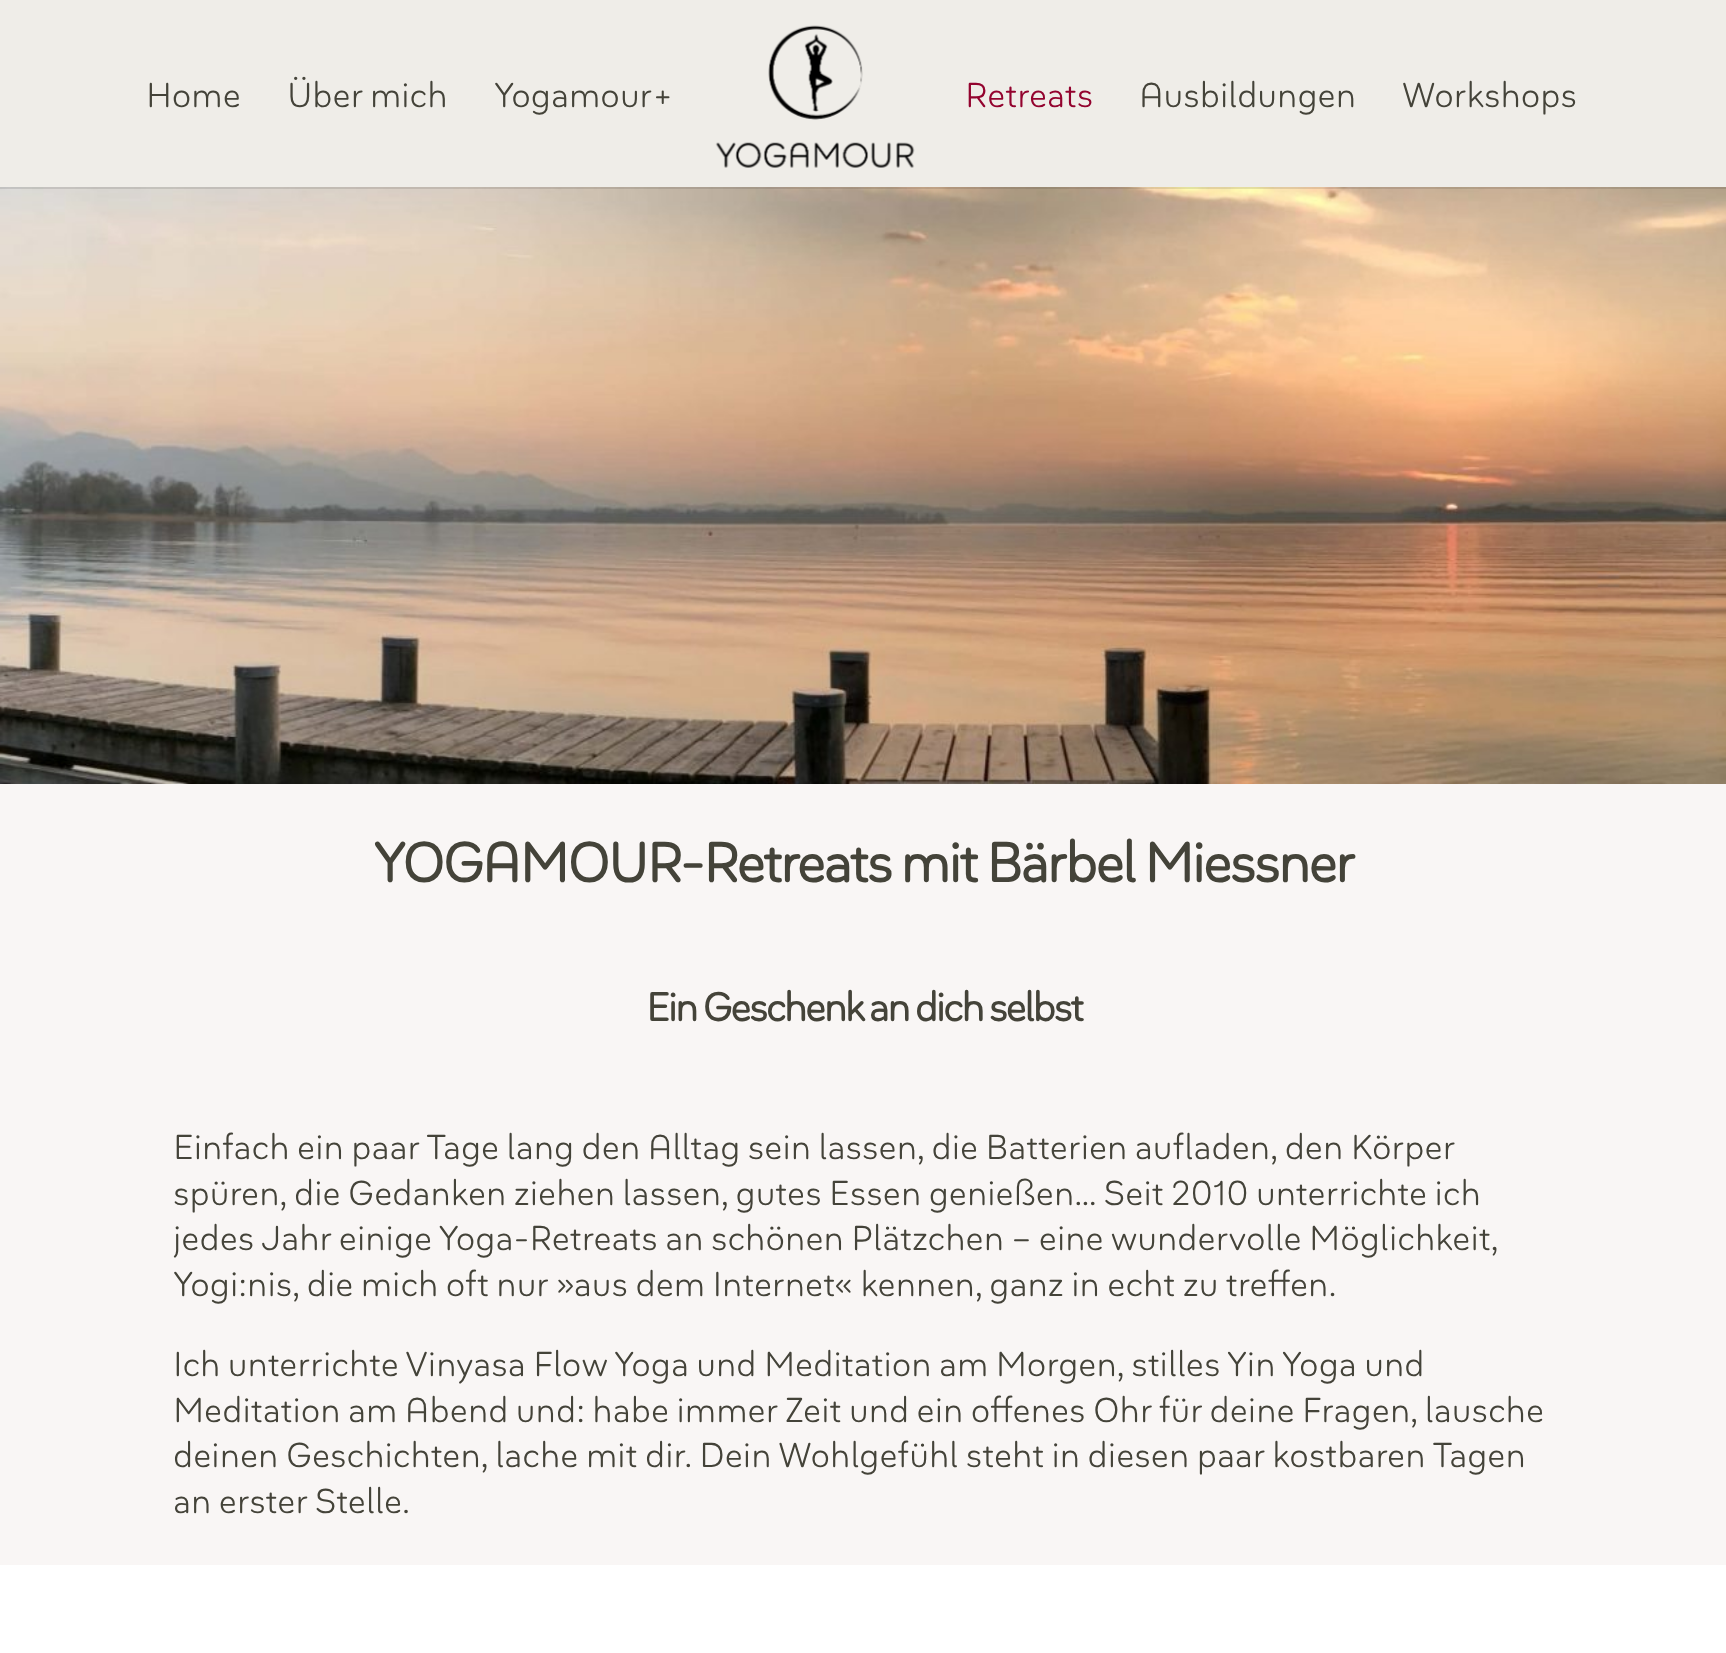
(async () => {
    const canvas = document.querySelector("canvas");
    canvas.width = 1726;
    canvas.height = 1653;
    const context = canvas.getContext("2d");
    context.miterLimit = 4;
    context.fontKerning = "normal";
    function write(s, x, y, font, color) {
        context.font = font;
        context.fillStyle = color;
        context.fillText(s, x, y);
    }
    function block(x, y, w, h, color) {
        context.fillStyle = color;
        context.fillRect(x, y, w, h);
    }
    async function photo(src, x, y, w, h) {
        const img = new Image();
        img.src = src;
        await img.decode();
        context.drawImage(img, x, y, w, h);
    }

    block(0, 0, 1726, 1653, "rgb(255, 255, 255)");
    await photo("media/2.png", 0, 187, 1726, 597);
    block(0, 187, 1726, 2, "rgba(0, 0, 0, 0.1)");
    block(0, 0, 1726, 187, "rgb(239, 237, 232)");
    write("Home", 146, 107, "300 35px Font", "rgb(68, 67, 57)");
    write("Über mich", 287, 107, "300 35px Font", "rgb(68, 67, 57)");
    write("Yogamour+", 494, 107, "300 35px Font", "rgb(68, 67, 57)");
    await photo("media/1.png", 715, 25, 200, 143);
    write("Retreats", 965, 107, "300 35px Font", "rgb(147, 3, 46)");
    write("Ausbildungen", 1139, 107, "300 35px Font", "rgb(68, 67, 57)");
    write("Workshops", 1402, 107, "300 35px Font", "rgb(68, 67, 57)");
    block(0, 784, 1726, 781, "rgb(249, 246, 245)");
    context.letterSpacing = "-2.2px";
    write("YOGAMOUR-Retreats mit Bärbel Miessner", 373, 882, "bold 56px Font", "rgb(68, 67, 57)");
    write("Ein Geschenk an dich selbst", 646, 1021, "bold 40.25px Font", "rgb(68, 67, 57)");
    context.letterSpacing = "0px";
    write("Einfach ein paar Tage lang den Alltag sein lassen, die Batterien aufladen, den Körper", 173, 1159, "300 35px Font", "rgb(68, 67, 57)");
    write("spüren, die Gedanken ziehen lassen, gutes Essen genießen… Seit 2010 unterrichte ich", 173, 1205, "300 35px Font", "rgb(68, 67, 57)");
    write("jedes Jahr einige Yoga-Retreats an schönen Plätzchen – eine wundervolle Möglichkeit,", 173, 1250, "300 35px Font", "rgb(68, 67, 57)");
    write("Yogi:nis, die mich oft nur »aus dem Internet« kennen, ganz in echt zu treffen.", 173, 1296, "300 35px Font", "rgb(68, 67, 57)");
    write("Ich unterrichte Vinyasa Flow Yoga und Meditation am Morgen, stilles Yin Yoga und", 173, 1376, "300 35px Font", "rgb(68, 67, 57)");
    write("Meditation am Abend und: habe immer Zeit und ein offenes Ohr für deine Fragen, lausche", 173, 1422, "300 35px Font", "rgb(68, 67, 57)");
    write("deinen Geschichten, lache mit dir. Dein Wohlgefühl steht in diesen paar kostbaren Tagen", 173, 1467, "300 35px Font", "rgb(68, 67, 57)");
    write("an erster Stelle.", 173, 1513, "300 35px Font", "rgb(68, 67, 57)");
})();
